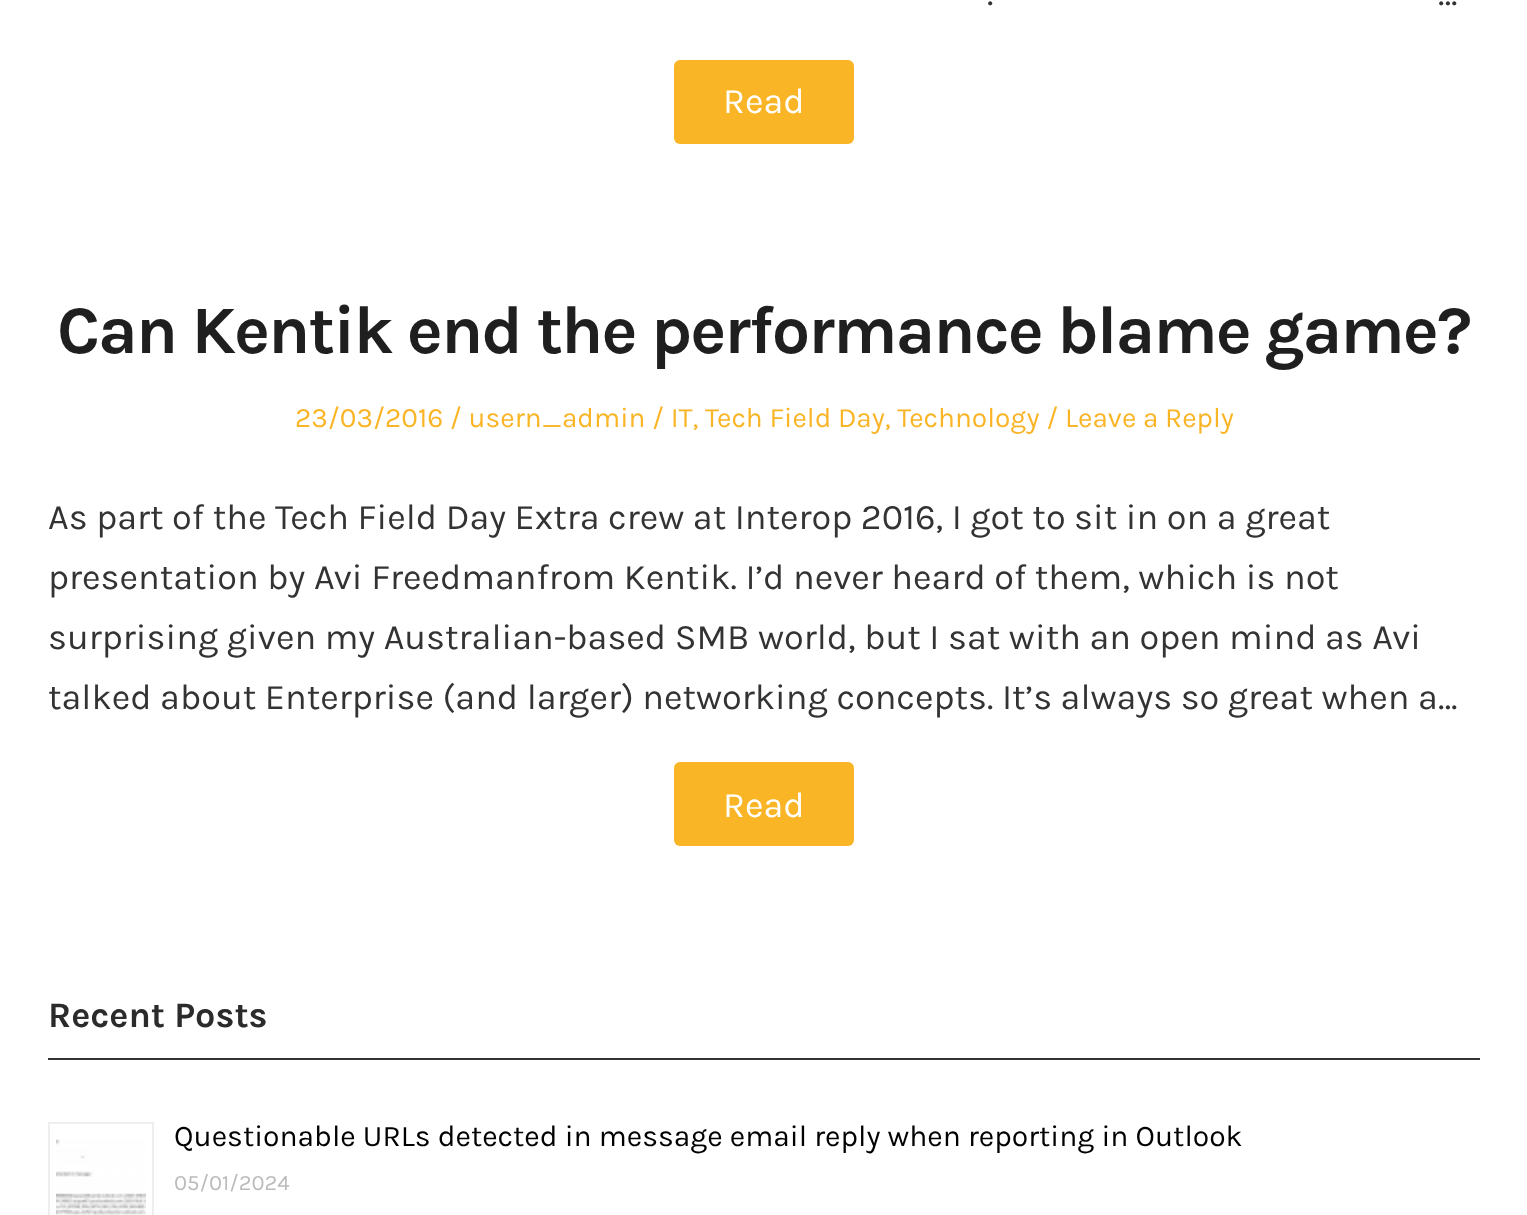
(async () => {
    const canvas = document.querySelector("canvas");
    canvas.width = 1527;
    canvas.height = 1215;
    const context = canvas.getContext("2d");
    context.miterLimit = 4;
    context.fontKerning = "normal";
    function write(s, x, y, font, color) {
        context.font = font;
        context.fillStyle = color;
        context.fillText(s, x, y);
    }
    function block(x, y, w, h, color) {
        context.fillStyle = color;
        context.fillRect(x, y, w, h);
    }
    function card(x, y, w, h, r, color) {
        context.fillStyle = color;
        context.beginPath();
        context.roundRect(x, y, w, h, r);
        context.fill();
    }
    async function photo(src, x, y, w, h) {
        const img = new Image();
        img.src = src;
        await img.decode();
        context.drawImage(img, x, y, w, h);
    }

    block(0, 0, 1527, 1215, "rgb(255, 255, 255)");
    write(".", 987, 5, "36px Karla", "rgb(51, 51, 51)");
    write("…", 1438, 5, "36px Karla", "rgb(51, 51, 51)");
    card(674, 60, 180, 84, 6, "rgb(250, 181, 38)");
    write("Read", 723, 113, "36px Karla", "rgb(255, 255, 255)");
    context.letterSpacing = "-2px";
    write("Can Kentik end the performance blame game?", 57, 353, "bold 68px Karla", "rgb(31, 31, 31)");
    context.letterSpacing = "0px";
    write("23/03/2016 / usern_admin / IT, Tech Field Day, Technology / Leave a Reply", 295, 427, "28px Karla", "rgb(250, 181, 38)");
    write("As part of the Tech Field Day Extra crew at Interop 2016, I got to sit in on a great", 48, 529, "36px Karla", "rgb(51, 51, 51)");
    write("presentation by Avi Freedmanfrom Kentik. I’d never heard of them, which is not", 48, 589, "36px Karla", "rgb(51, 51, 51)");
    write("surprising given my Australian-based SMB world, but I sat with an open mind as Avi", 48, 649, "36px Karla", "rgb(51, 51, 51)");
    write("talked about Enterprise (and larger) networking concepts. It’s always so great when a…", 48, 709, "36px Karla", "rgb(51, 51, 51)");
    card(674, 762, 180, 84, 6, "rgb(250, 181, 38)");
    write("Read", 723, 817, "36px Karla", "rgb(255, 255, 255)");
    block(48, 1058, 1432, 2, "rgb(51, 51, 51)");
    write("Recent Posts", 48, 1027, "bold 36px Karla", "rgb(43, 43, 43)");
    context.strokeStyle = "rgb(238, 238, 238)";
    context.lineWidth = 2;
    context.strokeRect(49, 1123, 104, 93);
    await photo("media/1.png", 56, 1139, 90, 76);
    write("Questionable URLs detected in message email reply when reporting in Outlook", 174, 1146, "30px Karla", "rgb(0, 0, 0)");
    write("05/01/2024", 174, 1190, "22px Karla", "rgb(187, 187, 187)");
})();
